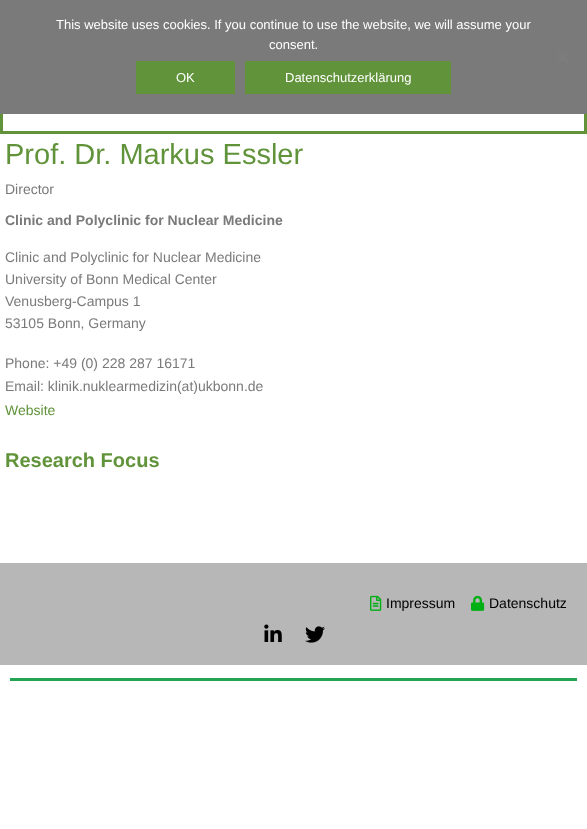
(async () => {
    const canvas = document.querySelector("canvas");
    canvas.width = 587;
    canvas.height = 829;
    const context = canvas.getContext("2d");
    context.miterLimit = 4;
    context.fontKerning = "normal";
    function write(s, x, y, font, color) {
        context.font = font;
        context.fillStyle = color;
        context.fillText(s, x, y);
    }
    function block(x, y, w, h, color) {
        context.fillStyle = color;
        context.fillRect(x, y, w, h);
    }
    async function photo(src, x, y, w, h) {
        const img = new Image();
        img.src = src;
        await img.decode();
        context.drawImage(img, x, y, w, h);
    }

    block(0, 0, 587, 829, "rgb(255, 255, 255)");
    context.strokeStyle = "rgb(97, 147, 59)";
    context.lineWidth = 3;
    context.strokeRect(1.5, 75.5, 584, 57);
    block(0, 0, 587, 114, "rgb(122, 122, 122)");
    write("This website uses cookies. If you continue to use the website, we will assume your", 56, 29, "13px Liberation Sans", "rgb(255, 255, 255)");
    write("consent.", 269, 49, "13px Liberation Sans", "rgb(255, 255, 255)");
    context.fillStyle = "rgb(125, 125, 125)";
    context.beginPath();
    context.moveTo(567.5, 51.5);
    context.lineTo(569, 53);
    context.lineTo(558.5, 63.5);
    context.lineTo(557, 62);
    context.closePath();
    context.fill();
    context.beginPath();
    context.moveTo(557, 53);
    context.lineTo(558.5, 51.5);
    context.lineTo(569, 62);
    context.lineTo(567.5, 63.5);
    context.closePath();
    context.fill();
    block(136, 61, 99, 33, "rgb(97, 147, 59)");
    write("OK", 176, 82, "13px Liberation Sans", "rgb(255, 255, 255)");
    block(245, 61, 206, 33, "rgb(97, 147, 59)");
    write("Datenschutzerklärung", 285, 82, "13px Liberation Sans", "rgb(255, 255, 255)");
    write("Prof. Dr. Markus Essler", 5, 164, "29px Liberation Sans", "rgb(97, 147, 59)");
    write("Director", 5, 194, "14px Liberation Sans", "rgb(122, 122, 122)");
    write("Clinic and Polyclinic for Nuclear Medicine", 5, 225, "bold 14px Liberation Sans", "rgb(122, 122, 122)");
    write("Clinic and Polyclinic for Nuclear Medicine", 5, 262, "14px Liberation Sans", "rgb(122, 122, 122)");
    write("University of Bonn Medical Center", 5, 284, "14px Liberation Sans", "rgb(122, 122, 122)");
    write("Venusberg-Campus 1", 5, 306, "14px Liberation Sans", "rgb(122, 122, 122)");
    write("53105 Bonn, Germany", 5, 328, "14px Liberation Sans", "rgb(122, 122, 122)");
    write("Phone: +49 (0) 228 287 16171", 5, 368, "14px Liberation Sans", "rgb(122, 122, 122)");
    write("Email: klinik.nuklearmedizin(at)ukbonn.de", 5, 391, "14px Liberation Sans", "rgb(122, 122, 122)");
    write("Website", 5, 415, "14px Liberation Sans", "rgb(97, 147, 59)");
    write("Research Focus", 5, 467, "bold 20px Liberation Sans", "rgb(97, 147, 59)");
    block(0, 563, 587, 102, "rgb(183, 183, 183)");
    await photo("media/1.png", 370, 595, 12, 16);
    write("Impressum", 386, 608, "14px Liberation Sans", "rgb(0, 0, 0)");
    await photo("media/2.png", 471, 595, 14, 16);
    write("Datenschutz", 489, 608, "14px Liberation Sans", "rgb(0, 0, 0)");
    await photo("media/3.png", 264, 624, 18, 18);
    await photo("media/4.png", 305, 626, 20, 17);
    block(10, 678, 567, 3, "rgb(35, 164, 85)");
})();
